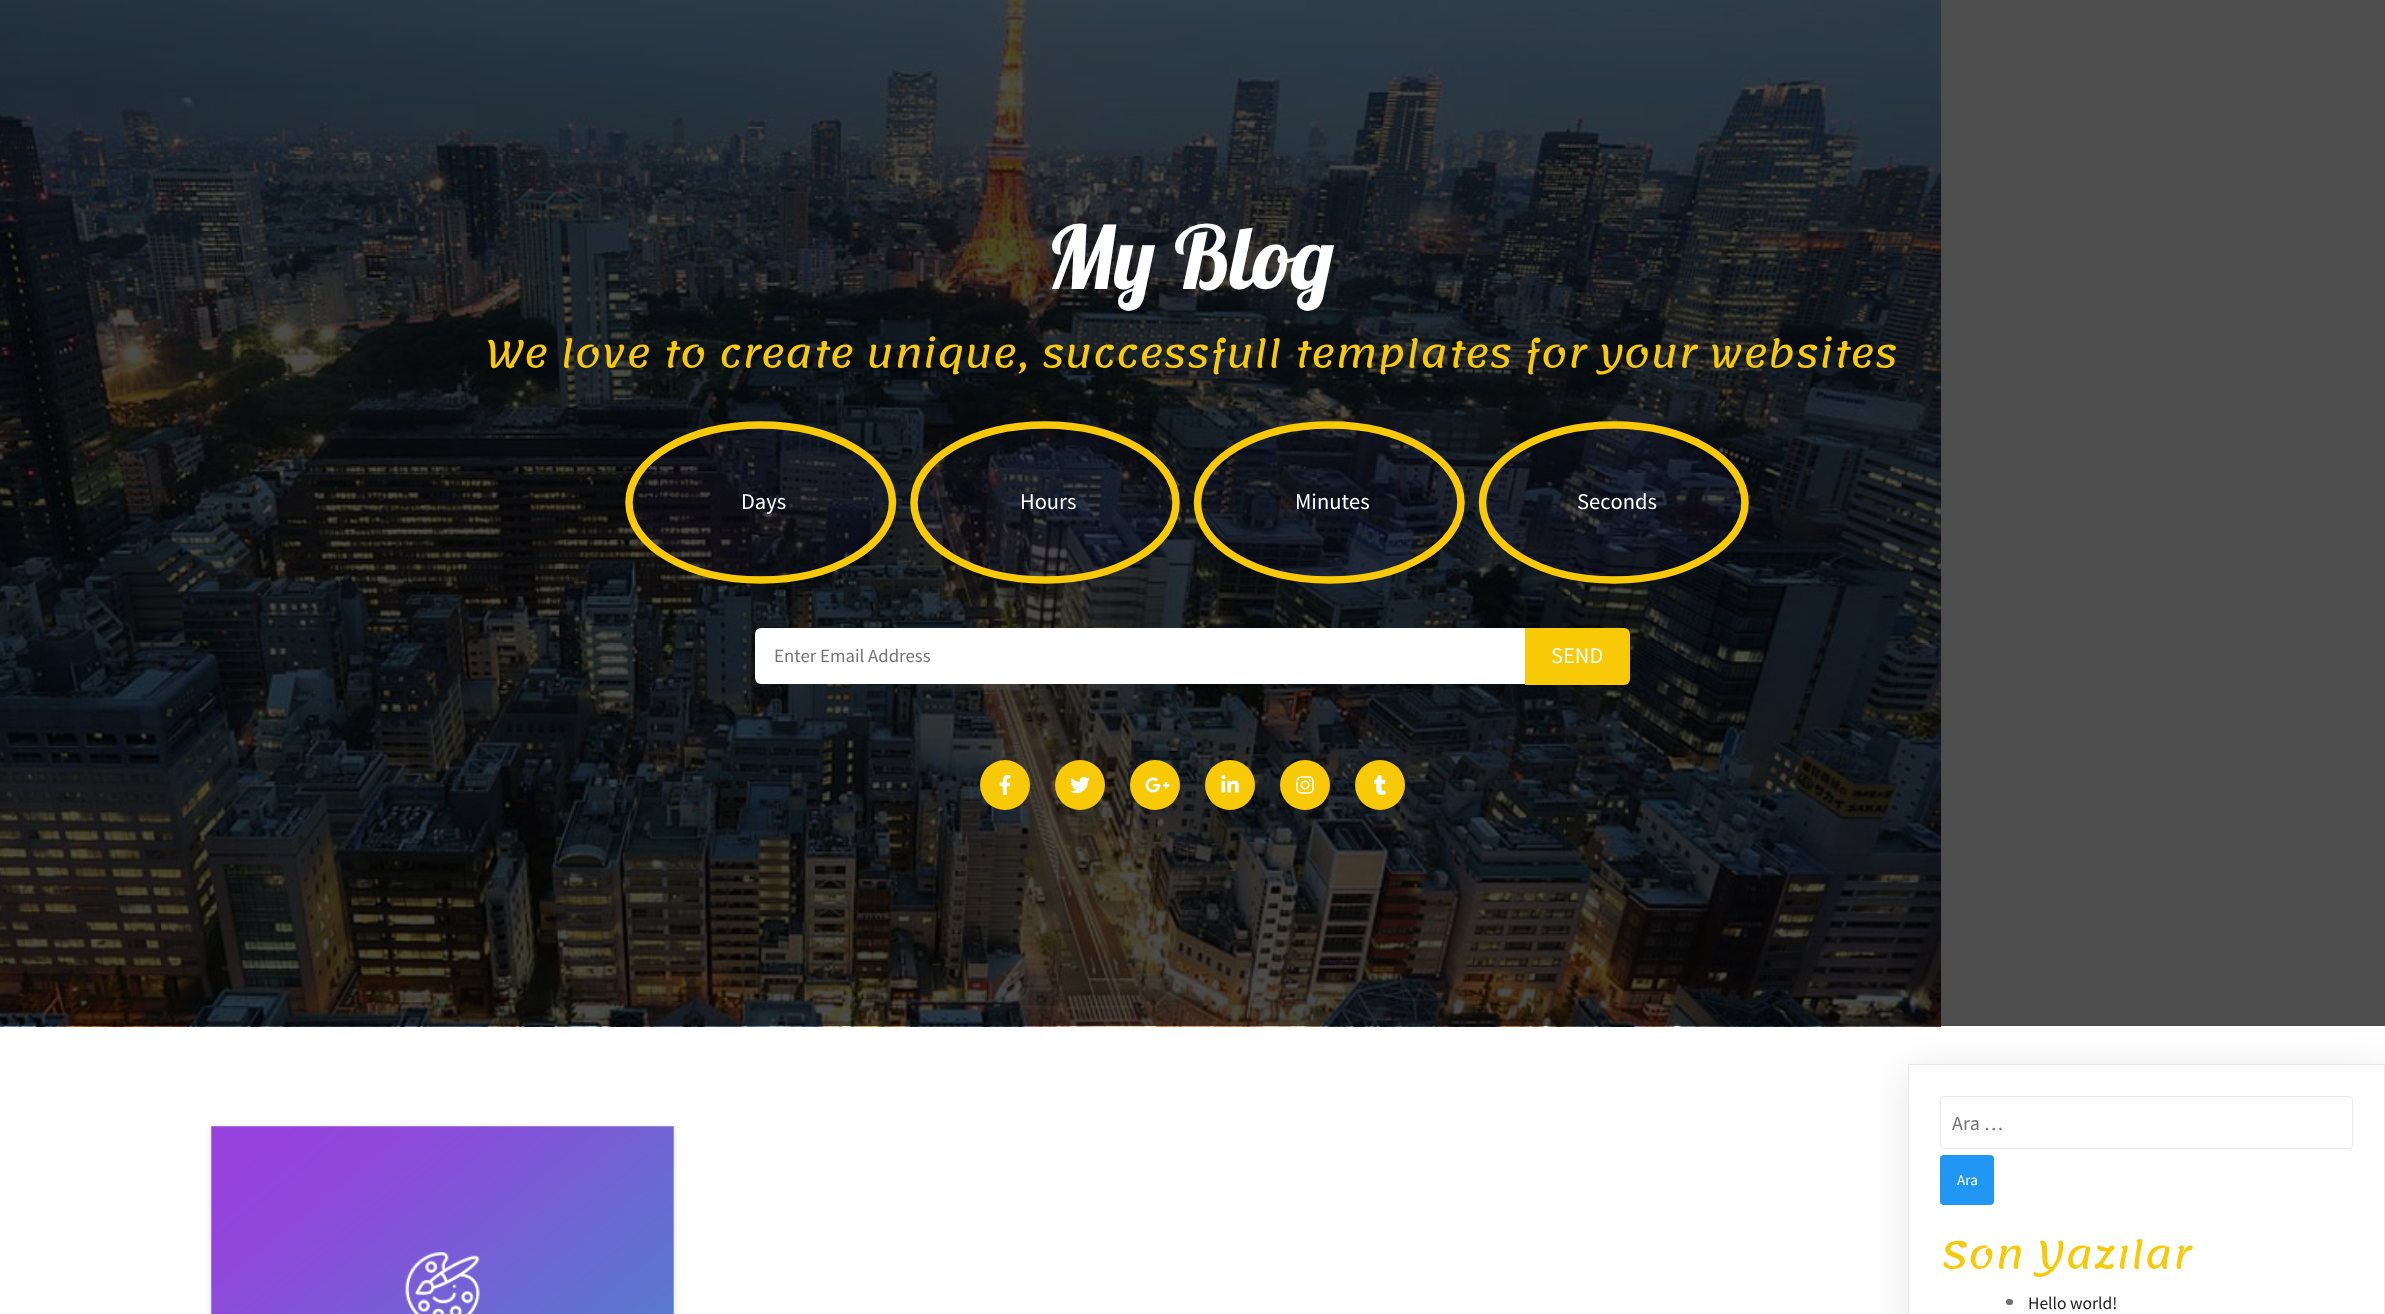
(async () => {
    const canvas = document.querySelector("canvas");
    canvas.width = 2385;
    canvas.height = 1314;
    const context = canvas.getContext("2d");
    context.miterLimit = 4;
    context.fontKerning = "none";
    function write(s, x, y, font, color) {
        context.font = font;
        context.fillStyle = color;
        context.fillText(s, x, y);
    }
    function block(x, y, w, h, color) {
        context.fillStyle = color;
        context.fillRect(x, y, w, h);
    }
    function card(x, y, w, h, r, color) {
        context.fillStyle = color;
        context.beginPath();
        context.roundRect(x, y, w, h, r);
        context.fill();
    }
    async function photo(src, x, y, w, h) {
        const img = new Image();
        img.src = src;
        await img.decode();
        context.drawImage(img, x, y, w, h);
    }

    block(0, 0, 2385, 1314, "rgb(255, 255, 255)");
    block(1941, 0, 444, 1026, "rgb(77, 77, 77)");
    context.save();
    context.beginPath();
    context.moveTo(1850, 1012);
    context.lineTo(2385, 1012);
    context.lineTo(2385, 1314);
    context.lineTo(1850, 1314);
    context.closePath();
    context.moveTo(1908, 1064);
    context.lineTo(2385, 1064);
    context.lineTo(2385, 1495);
    context.lineTo(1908, 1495);
    context.closePath();
    context.clip("evenodd");
    context.fillStyle = "rgba(0, 0, 0, 0.1)";
    context.filter = "blur(19px)";
    context.beginPath();
    context.rect(1908, 1070, 477, 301);
    context.fill();
    context.filter = "none";
    context.restore();
    await photo("media/1.png", 0, 0, 1941, 1027);
    write("My Blog", 1046, 289, "87.5px Lobster", "rgb(255, 255, 255)");
    write("We love to create unique, successfull templates for your websites", 487, 367, "37.5px Lemonada", "rgb(247, 201, 6)");
    context.fillStyle = "rgba(43, 22, 97, 0.08)";
    context.beginPath();
    context.ellipse(760.5, 502.5, 135.5, 81, 0, 0, Math.PI * 2);
    context.fill();
    context.beginPath();
    context.moveTo(760.5, 425);
    context.bezierCurveTo(833.5, 425, 892.5, 459.5, 892.5, 502.5);
    context.bezierCurveTo(892.5, 545.5, 833.5, 580, 760.5, 580);
    context.bezierCurveTo(688, 580, 629, 545.5, 629, 502.5);
    context.bezierCurveTo(629, 459.5, 688, 425, 760.5, 425);
    context.closePath();
    context.strokeStyle = "rgb(247, 201, 6)";
    context.lineWidth = 7.5;
    context.stroke();
    write("Days", 741, 509, "22.5px Source Sans Pro", "rgb(255, 255, 255)");
    context.fillStyle = "rgba(43, 22, 97, 0.08)";
    context.beginPath();
    context.ellipse(1045, 502.5, 135, 81, 0, 0, Math.PI * 2);
    context.fill();
    context.beginPath();
    context.moveTo(1045, 425);
    context.bezierCurveTo(1117.5, 425, 1176, 459.5, 1176, 502.5);
    context.bezierCurveTo(1176, 545.5, 1117.5, 580, 1045, 580);
    context.bezierCurveTo(972.5, 580, 914, 545.5, 914, 502.5);
    context.bezierCurveTo(914, 459.5, 972.5, 425, 1045, 425);
    context.closePath();
    context.stroke();
    write("Hours", 1020, 509, "22.5px Source Sans Pro", "rgb(255, 255, 255)");
    context.fillStyle = "rgba(43, 22, 97, 0.08)";
    context.beginPath();
    context.ellipse(1329.5, 502.5, 135.5, 81, 0, 0, Math.PI * 2);
    context.fill();
    context.beginPath();
    context.moveTo(1329.5, 425);
    context.bezierCurveTo(1402, 425, 1461, 459.5, 1461, 502.5);
    context.bezierCurveTo(1461, 545.5, 1402, 580, 1329.5, 580);
    context.bezierCurveTo(1256.5, 580, 1197.5, 545.5, 1197.5, 502.5);
    context.bezierCurveTo(1197.5, 459.5, 1256.5, 425, 1329.5, 425);
    context.closePath();
    context.stroke();
    write("Minutes", 1295, 509, "22.5px Source Sans Pro", "rgb(255, 255, 255)");
    context.fillStyle = "rgba(43, 22, 97, 0.08)";
    context.beginPath();
    context.ellipse(1614, 502.5, 135, 81, 0, 0, Math.PI * 2);
    context.fill();
    context.beginPath();
    context.moveTo(1614, 425);
    context.bezierCurveTo(1686, 425, 1745, 459.5, 1745, 502.5);
    context.bezierCurveTo(1745, 545.5, 1686, 580, 1614, 580);
    context.bezierCurveTo(1541.5, 580, 1482.5, 545.5, 1482.5, 502.5);
    context.bezierCurveTo(1482.5, 459.5, 1541.5, 425, 1614, 425);
    context.closePath();
    context.stroke();
    write("Seconds", 1577, 509, "22.5px Source Sans Pro", "rgb(255, 255, 255)");
    context.beginPath();
    context.roundRect(755, 628, 770, 56, [6, 0, 0, 6]);
    context.fill();
    write("Enter Email Address", 774, 662, "18.75px Source Sans Pro", "rgb(117, 117, 117)");
    context.fillStyle = "rgb(247, 201, 6)";
    context.beginPath();
    context.roundRect(1525, 628, 105, 57, [0, 6, 6, 0]);
    context.fill();
    write("SEND", 1551, 663, "22.5px Source Sans Pro", "rgb(255, 255, 255)");
    context.fillStyle = "rgb(247, 201, 6)";
    context.beginPath();
    context.arc(1005, 785, 25, 0, Math.PI * 2);
    context.fill();
    await photo("media/2.png", 999, 775, 12, 20);
    context.beginPath();
    context.arc(1080, 785, 25, 0, Math.PI * 2);
    context.fill();
    await photo("media/3.png", 1070, 776, 20, 18);
    context.beginPath();
    context.arc(1155, 785, 25, 0, Math.PI * 2);
    context.fill();
    await photo("media/4.png", 1145, 777, 25, 16);
    context.beginPath();
    context.arc(1230, 785, 25, 0, Math.PI * 2);
    context.fill();
    await photo("media/5.png", 1221, 775, 18, 18);
    context.beginPath();
    context.arc(1305, 785, 25, 0, Math.PI * 2);
    context.fill();
    await photo("media/6.png", 1296, 776, 18, 18);
    context.beginPath();
    context.arc(1380, 785, 25, 0, Math.PI * 2);
    context.fill();
    await photo("media/7.png", 1374, 775, 12, 20);
    context.fillStyle = "rgba(0, 0, 0, 0.15)";
    context.filter = "blur(3px)";
    context.beginPath();
    context.rect(211, 1128, 463, 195);
    context.fill();
    context.filter = "none";
    block(211, 1126, 463, 188, "rgb(255, 255, 255)");
    await photo("media/8.png", 211, 1126, 463, 188);
    context.strokeStyle = "rgb(234, 234, 234)";
    context.lineWidth = 1;
    context.strokeRect(1908.5, 1064.5, 476, 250);
    context.beginPath();
    context.roundRect(1940.5, 1096.5, 412, 52, 3.5);
    context.stroke();
    write("Ara …", 1952, 1130, "20px Source Sans Pro", "rgb(117, 117, 117)");
    card(1940, 1155, 54, 50, 4, "rgb(33, 150, 243)");
    write("Ara", 1957, 1185, "15px Source Sans Pro", "rgb(255, 255, 255)");
    write("Son Yazılar", 1941, 1268, "37.5px Lemonada", "rgb(247, 201, 6)");
    card(2006, 1299, 7, 6, 3, "rgb(112, 112, 112)");
    write("Hello world!", 2028, 1309, "17.5px Source Sans Pro", "rgb(33, 33, 33)");
})();
